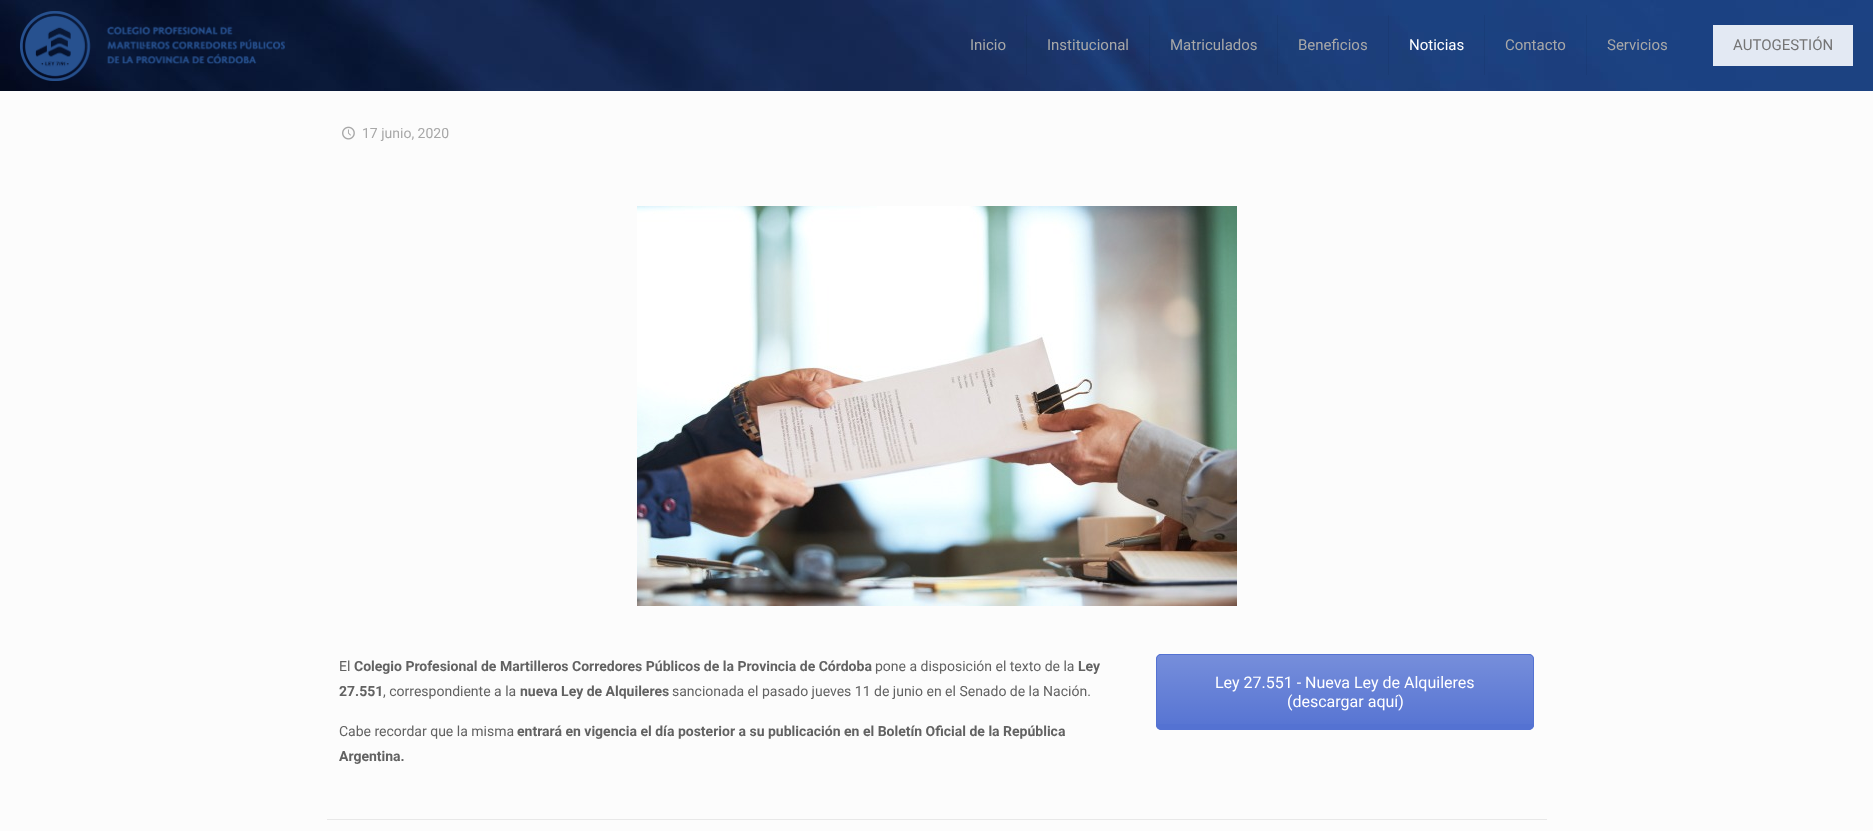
(async () => {
    const canvas = document.querySelector("canvas");
    canvas.width = 1873;
    canvas.height = 831;
    const context = canvas.getContext("2d");
    context.miterLimit = 4;
    context.fontKerning = "normal";
    function write(s, x, y, font, color) {
        context.font = font;
        context.fillStyle = color;
        context.fillText(s, x, y);
    }
    function block(x, y, w, h, color) {
        context.fillStyle = color;
        context.fillRect(x, y, w, h);
    }
    function card(x, y, w, h, r, color) {
        context.fillStyle = color;
        context.beginPath();
        context.roundRect(x, y, w, h, r);
        context.fill();
    }
    async function photo(src, x, y, w, h) {
        const img = new Image();
        img.src = src;
        await img.decode();
        context.drawImage(img, x, y, w, h);
    }
    let gradient;

    block(0, 0, 1873, 831, "rgb(252, 252, 252)");
    await photo("media/1.png", 0, 0, 1873, 91);
    await photo("media/2.png", 20, 11, 265, 70);
    block(1026, 15, 1, 60, "rgba(0, 0, 0, 0.05)");
    write("Inicio", 970, 50, "15px Roboto", "rgb(168, 168, 168)");
    block(1149, 15, 1, 60, "rgba(0, 0, 0, 0.05)");
    write("Institucional", 1047, 50, "15px Roboto", "rgb(168, 168, 168)");
    block(1277, 15, 1, 60, "rgba(0, 0, 0, 0.05)");
    write("Matriculados", 1170, 50, "15px Roboto", "rgb(168, 168, 168)");
    block(1388, 15, 1, 60, "rgba(0, 0, 0, 0.05)");
    write("Beneficios", 1298, 50, "15px Roboto", "rgb(168, 168, 168)");
    block(1484, 15, 1, 60, "rgba(0, 0, 0, 0.05)");
    write("Noticias", 1409, 50, "15px Roboto", "rgb(255, 255, 255)");
    block(1586, 15, 1, 60, "rgba(0, 0, 0, 0.05)");
    write("Contacto", 1505, 50, "15px Roboto", "rgb(168, 168, 168)");
    write("Servicios", 1607, 50, "15px Roboto", "rgb(168, 168, 168)");
    block(1713, 25, 140, 41, "rgb(227, 233, 243)");
    write("AUTOGESTIÓN", 1733, 50, "15px Roboto", "rgb(116, 116, 116)");
    await photo("media/3.png", 342, 126, 13, 14);
    write("17 junio, 2020", 362, 138, "14px Roboto", "rgb(168, 168, 168)");
    await photo("media/4.png", 637, 206, 600, 400);
    write("El", 339, 671, "14px Roboto", "rgb(98, 98, 98)");
    write("Colegio Profesional de Martilleros Corredores Públicos de la Provincia de Córdoba", 354, 671, "bold 14px Roboto", "rgb(98, 98, 98)");
    write("pone a disposición el texto de la", 875, 671, "14px Roboto", "rgb(98, 98, 98)");
    write("Ley", 1078, 671, "bold 14px Roboto", "rgb(98, 98, 98)");
    write("27.551", 339, 696, "bold 14px Roboto", "rgb(98, 98, 98)");
    write(", correspondiente a la", 383, 696, "14px Roboto", "rgb(98, 98, 98)");
    write("nueva Ley de Alquileres", 520, 696, "bold 14px Roboto", "rgb(98, 98, 98)");
    write("sancionada el pasado jueves 11 de junio en el Senado de la Nación.", 672, 696, "14px Roboto", "rgb(98, 98, 98)");
    write("Cabe recordar que la misma", 339, 736, "14px Roboto", "rgb(98, 98, 98)");
    write("entrará en vigencia el día posterior a su publicación en el Boletín Oficial de la República", 517, 736, "bold 14px Roboto", "rgb(98, 98, 98)");
    write("Argentina.", 339, 761, "bold 14px Roboto", "rgb(98, 98, 98)");
    card(1156, 654, 378, 76, 5, "rgb(84, 114, 210)");
    context.save();
    context.beginPath();
    context.roundRect(1156, 654, 378, 76, 5);
    context.clip();
    gradient = context.createLinearGradient(1345, 655, 1345, 729);
    gradient.addColorStop(0, "rgba(255, 255, 255, 0.2)");
    gradient.addColorStop(1, "rgba(255, 255, 255, 0.01)");
    context.fillStyle = gradient;
    context.fillRect(1156, 655, 378, 69);
    context.restore();
    context.beginPath();
    context.roundRect(1156.5, 654.5, 377, 75, 4.5);
    context.strokeStyle = "rgb(84, 114, 210)";
    context.stroke();
    write("Ley 27.551 - Nueva Ley de Alquileres", 1215, 688, "16px Roboto", "rgb(255, 255, 255)");
    write("(descargar aquí)", 1287, 707, "16px Roboto", "rgb(255, 255, 255)");
    block(327, 819, 1220, 1, "rgb(232, 232, 232)");
})();
